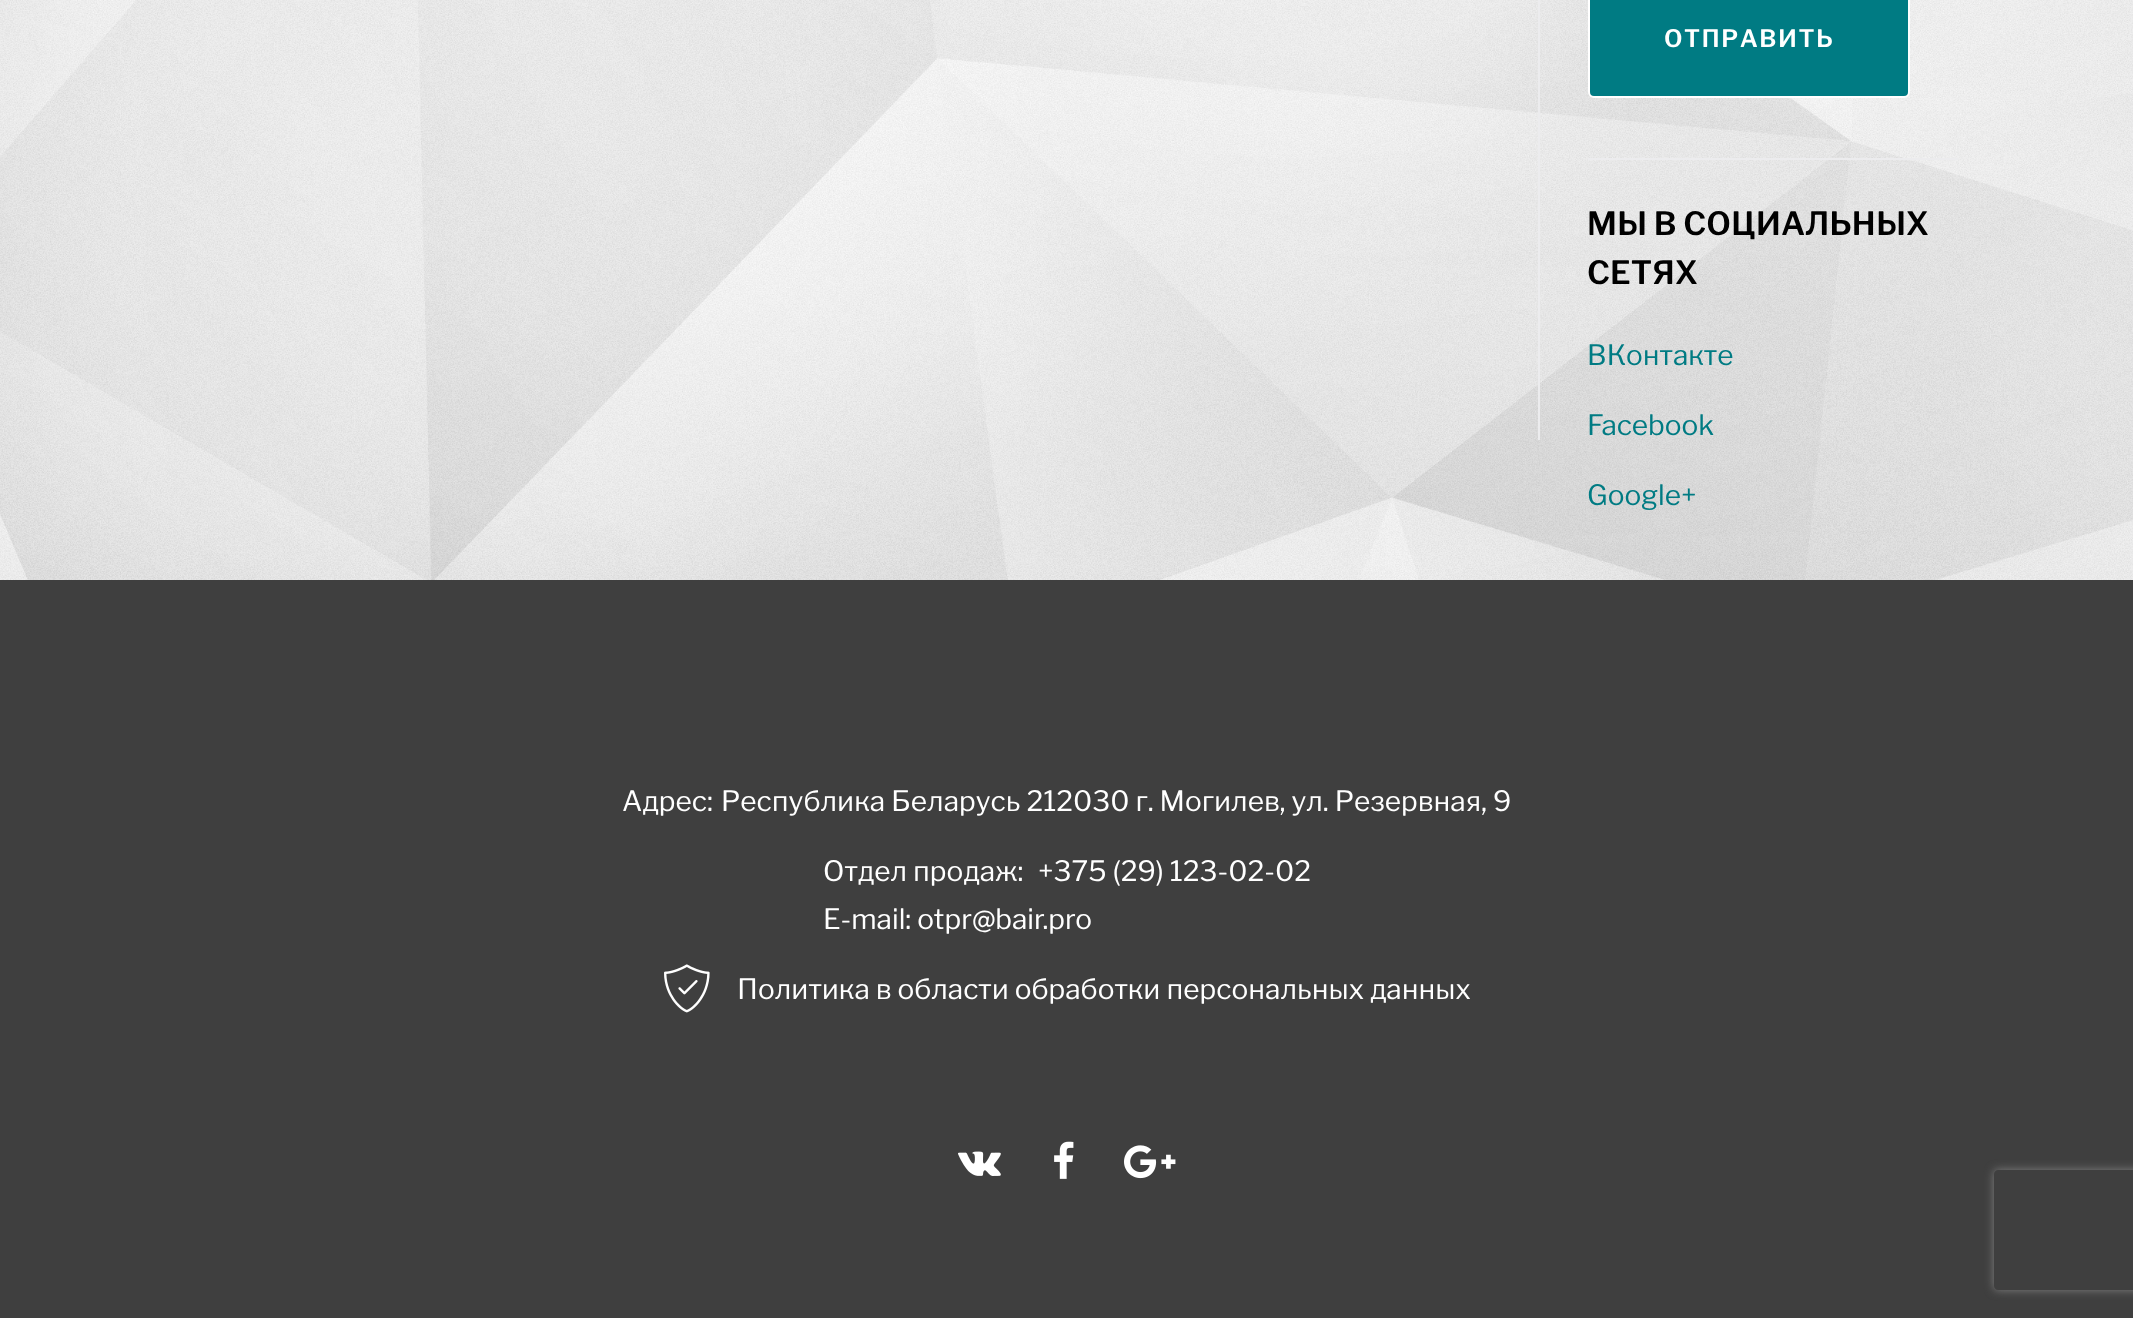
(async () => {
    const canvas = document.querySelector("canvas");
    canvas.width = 2133;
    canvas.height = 1318;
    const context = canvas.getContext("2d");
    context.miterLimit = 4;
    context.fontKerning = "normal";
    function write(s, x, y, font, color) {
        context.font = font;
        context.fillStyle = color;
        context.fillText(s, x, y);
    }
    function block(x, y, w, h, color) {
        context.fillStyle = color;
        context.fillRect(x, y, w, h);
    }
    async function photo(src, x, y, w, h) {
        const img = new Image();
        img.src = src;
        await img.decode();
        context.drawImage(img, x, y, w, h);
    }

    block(0, 0, 2133, 1318, "rgb(255, 255, 255)");
    await photo("media/1.png", 0, 0, 2133, 580);
    block(1538, 0, 2, 440, "rgb(236, 236, 238)");
    context.fillStyle = "rgb(0, 123, 131)";
    context.beginPath();
    context.roundRect(1589, -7, 320, 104, 5);
    context.fill();
    context.strokeStyle = "rgb(255, 255, 255)";
    context.lineWidth = 2;
    context.stroke();
    context.letterSpacing = "1.5px";
    write("ОТПРАВИТЬ", 1664, 47, "600 24px Libre Franklin", "rgb(255, 255, 255)");
    block(1588, 158, 370, 2, "rgb(236, 236, 238)");
    context.letterSpacing = "0px";
    write("МЫ В СОЦИАЛЬНЫХ", 1587, 235, "600 32px Libre Franklin", "rgb(0, 0, 0)");
    write("СЕТЯХ", 1587, 284, "600 32px Libre Franklin", "rgb(0, 0, 0)");
    write("ВКонтакте", 1587, 365, "28px Libre Franklin", "rgb(0, 123, 131)");
    write("Facebook", 1587, 435, "28px Libre Franklin", "rgb(0, 123, 131)");
    write("Google+", 1587, 505, "28px Libre Franklin", "rgb(0, 123, 131)");
    block(0, 580, 2133, 738, "rgb(63, 63, 63)");
    write("Адрес:", 622, 811, "28px Libre Franklin", "rgb(255, 255, 255)");
    write("Республика Беларусь 212030 г. Могилев, ул. Резервная, 9", 721, 811, "28px Libre Franklin", "rgb(255, 255, 255)");
    write("Отдел продаж:", 823, 881, "28px Libre Franklin", "rgb(255, 255, 255)");
    write("+375 (29) 123-02-02", 1038, 881, "28px Libre Franklin", "rgb(255, 255, 255)");
    write("E-mail: otpr@bair.pro", 823, 929, "28px Libre Franklin", "rgb(255, 255, 255)");
    await photo("media/2.png", 664, 964, 46, 49);
    write("Политика в области обработки персональных данных", 737, 999, "28px Libre Franklin", "rgb(255, 255, 255)");
    await photo("media/3.png", 958, 1151, 43, 25);
    await photo("media/4.png", 1054, 1141, 20, 38);
    await photo("media/5.png", 1124, 1145, 52, 34);
    context.save();
    context.beginPath();
    context.moveTo(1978, 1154);
    context.lineTo(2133, 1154);
    context.lineTo(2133, 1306);
    context.lineTo(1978, 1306);
    context.closePath();
    context.moveTo(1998, 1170);
    context.lineTo(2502, 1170);
    context.bezierCurveTo(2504, 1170, 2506, 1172, 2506, 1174);
    context.lineTo(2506, 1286);
    context.bezierCurveTo(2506, 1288, 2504, 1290, 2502, 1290);
    context.lineTo(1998, 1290);
    context.bezierCurveTo(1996, 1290, 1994, 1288, 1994, 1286);
    context.lineTo(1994, 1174);
    context.bezierCurveTo(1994, 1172, 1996, 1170, 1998, 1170);
    context.closePath();
    context.clip("evenodd");
    context.fillStyle = "rgb(128, 128, 128)";
    context.filter = "blur(5px)";
    context.beginPath();
    context.roundRect(1994, 1170, 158, 120, 4);
    context.fill();
    context.filter = "none";
    context.restore();
})();
